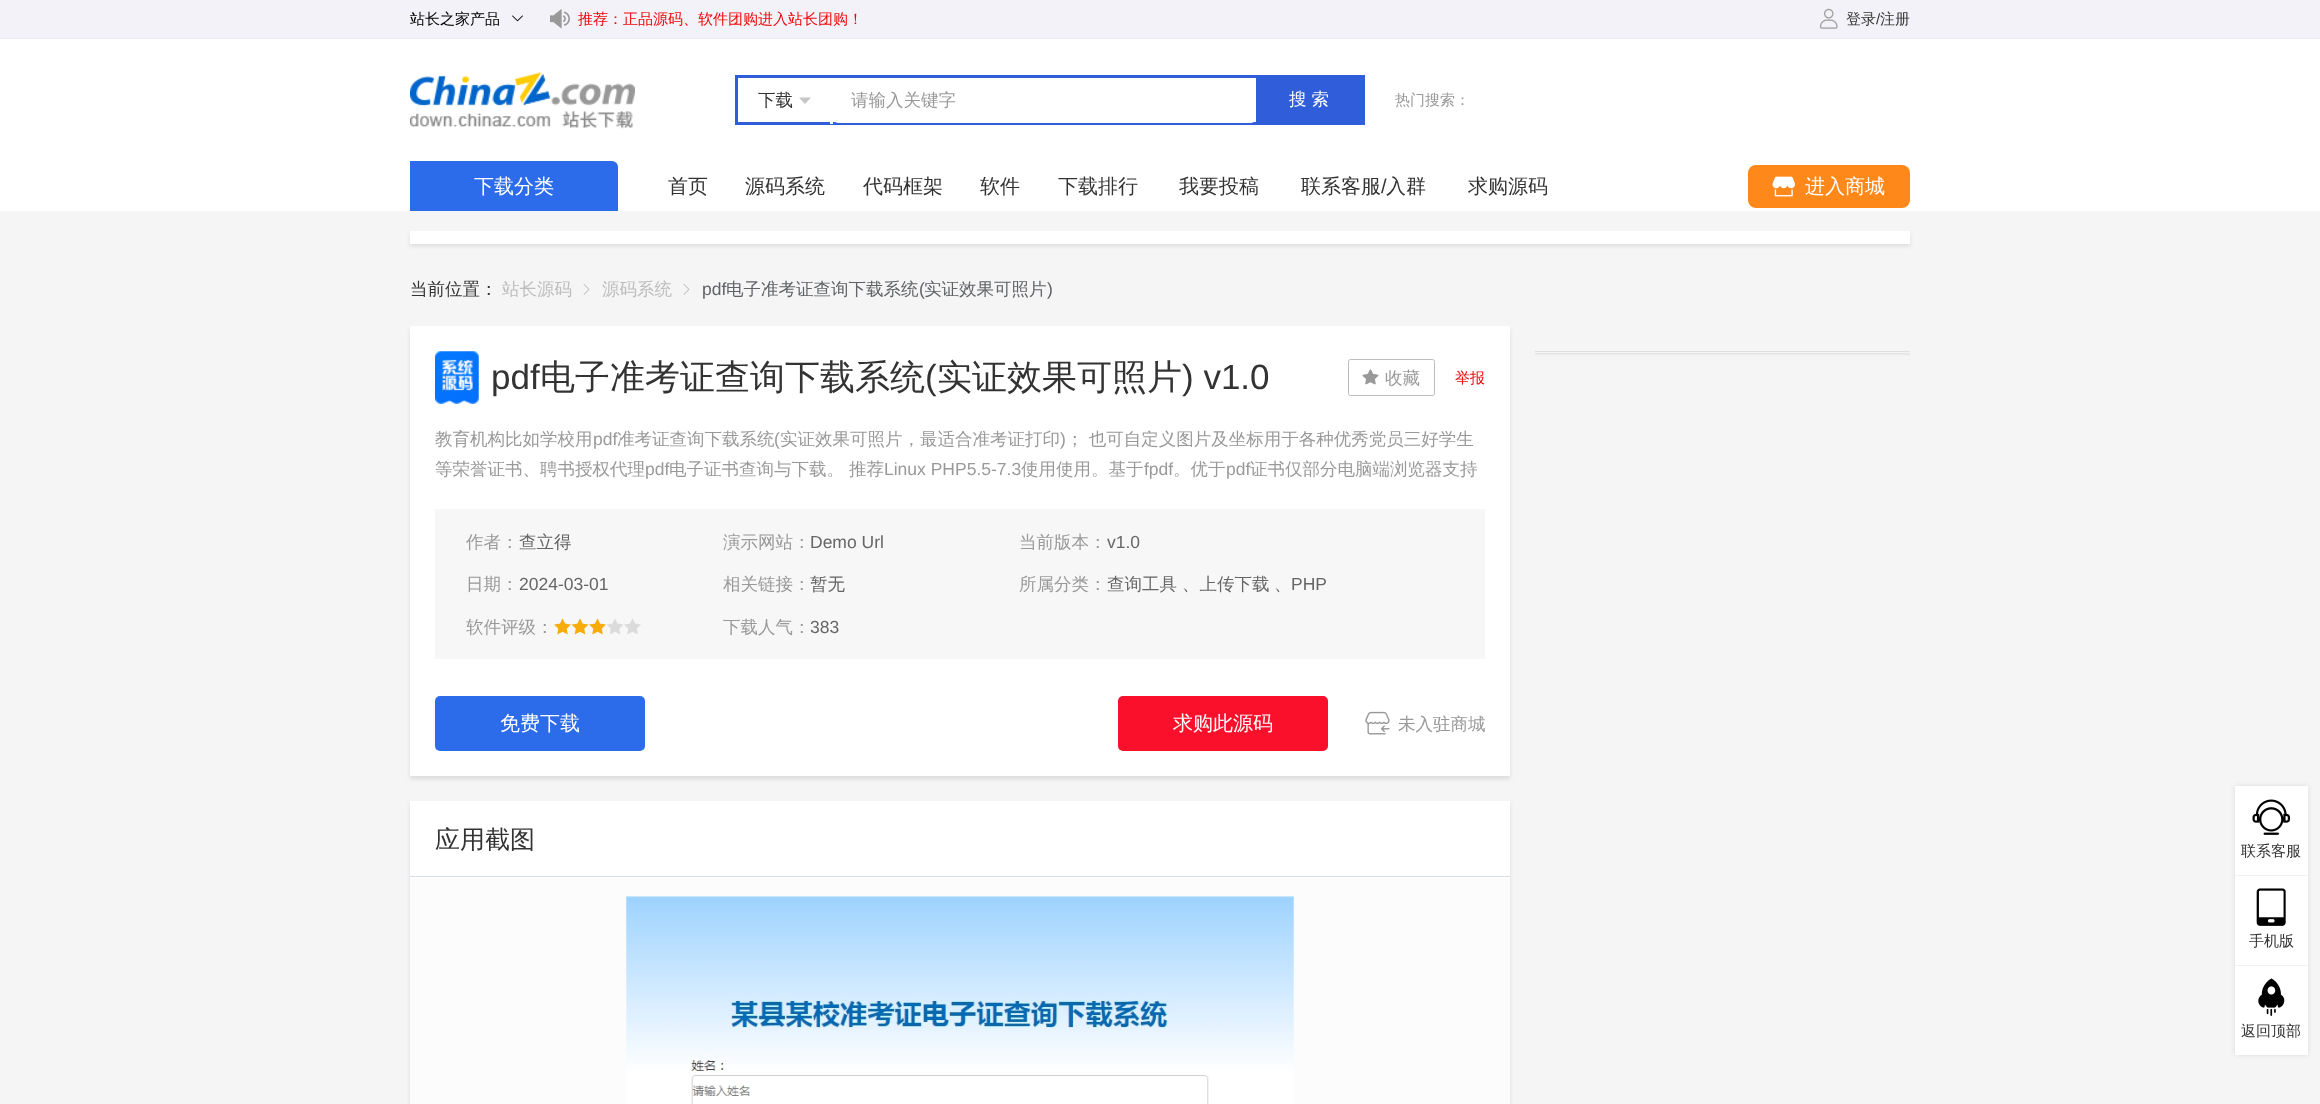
(async () => {
    const canvas = document.querySelector("canvas");
    canvas.width = 2320;
    canvas.height = 1104;
    const context = canvas.getContext("2d");
    context.miterLimit = 4;
    context.fontKerning = "normal";
    function write(s, x, y, font, color) {
        context.font = font;
        context.fillStyle = color;
        context.fillText(s, x, y);
    }
    function block(x, y, w, h, color) {
        context.fillStyle = color;
        context.fillRect(x, y, w, h);
    }
    function card(x, y, w, h, r, color) {
        context.fillStyle = color;
        context.beginPath();
        context.roundRect(x, y, w, h, r);
        context.fill();
    }
    async function photo(src, x, y, w, h) {
        const img = new Image();
        img.src = src;
        await img.decode();
        context.drawImage(img, x, y, w, h);
    }

    block(0, 0, 2320, 1104, "rgb(255, 255, 255)");
    block(0, 0, 2320, 38, "rgb(242, 242, 248)");
    block(0, 38, 2320, 1, "rgb(236, 236, 236)");
    write("站长之家产品", 410, 24, "500 15px WenQuanYi Zen Hei", "rgb(0, 0, 0)");
    await photo("media/1.png", 512, 15, 11, 7);
    await photo("media/2.png", 550, 9, 20, 20);
    write("推荐：正品源码、软件团购进入站长团购！", 578, 24, "500 15px WenQuanYi Zen Hei", "rgb(240, 8, 8)");
    await photo("media/3.png", 1819, 8, 19, 21);
    write("登录", 1846, 24, "500 15px WenQuanYi Zen Hei", "rgb(51, 51, 51)");
    write("/", 1876, 24, "15px Liberation Sans", "rgb(51, 51, 51)");
    write("注册", 1880, 24, "500 15px WenQuanYi Zen Hei", "rgb(51, 51, 51)");
    await photo("media/4.png", 410, 72, 225, 57);
    context.strokeStyle = "rgb(48, 93, 217)";
    context.lineWidth = 3;
    context.strokeRect(736.5, 76.5, 627, 47);
    block(830, 122, 3, 2, "rgb(255, 255, 255)");
    write("下载", 758, 106, "500 17.5px WenQuanYi Zen Hei", "rgb(51, 51, 51)");
    context.fillStyle = "rgb(197, 197, 197)";
    context.beginPath();
    context.moveTo(799, 97.5);
    context.lineTo(811, 97.5);
    context.lineTo(805, 104);
    context.closePath();
    context.fill();
    card(833, 78, 423, 45, 5, "rgb(255, 255, 255)");
    write("请输入关键字", 851, 106, "500 17.5px WenQuanYi Zen Hei", "rgb(153, 153, 153)");
    block(1256, 78, 106, 44, "rgb(48, 93, 217)");
    context.letterSpacing = "5px";
    write("搜索", 1289, 105, "500 17.5px WenQuanYi Zen Hei", "rgb(255, 255, 255)");
    context.letterSpacing = "0px";
    write("热门搜索：", 1395, 105, "500 15px WenQuanYi Zen Hei", "rgb(153, 153, 153)");
    context.fillStyle = "rgb(44, 107, 234)";
    context.beginPath();
    context.roundRect(410, 161, 208, 50, [0, 6, 0, 0]);
    context.fill();
    write("下载分类", 474, 193, "500 20px WenQuanYi Zen Hei", "rgb(255, 255, 255)");
    write("首页", 668, 193, "500 20px WenQuanYi Zen Hei", "rgb(51, 51, 51)");
    write("源码系统", 745, 193, "500 20px WenQuanYi Zen Hei", "rgb(51, 51, 51)");
    write("代码框架", 863, 193, "500 20px WenQuanYi Zen Hei", "rgb(51, 51, 51)");
    write("软件", 980, 193, "500 20px WenQuanYi Zen Hei", "rgb(51, 51, 51)");
    write("下载排行", 1058, 193, "500 20px WenQuanYi Zen Hei", "rgb(51, 51, 51)");
    write("我要投稿", 1179, 193, "500 20px WenQuanYi Zen Hei", "rgb(51, 51, 51)");
    write("联系客服", 1301, 193, "500 20px WenQuanYi Zen Hei", "rgb(51, 51, 51)");
    write("/", 1381, 193, "20px Liberation Sans", "rgb(51, 51, 51)");
    write("入群", 1386, 193, "500 20px WenQuanYi Zen Hei", "rgb(51, 51, 51)");
    write("求购源码", 1468, 193, "500 20px WenQuanYi Zen Hei", "rgb(51, 51, 51)");
    card(1748, 165, 162, 43, 8, "rgb(255, 136, 27)");
    await photo("media/5.png", 1772, 176, 23, 21);
    write("进入商城", 1805, 193, "500 20px WenQuanYi Zen Hei", "rgb(255, 255, 255)");
    block(0, 211, 2320, 893, "rgb(245, 245, 245)");
    context.fillStyle = "rgba(0, 0, 0, 0.1)";
    context.filter = "blur(2px)";
    context.beginPath();
    context.rect(410, 234, 1500, 12);
    context.fill();
    context.filter = "none";
    block(410, 231, 1500, 13, "rgb(255, 255, 255)");
    write("当前位置：", 410, 295, "500 17.5px WenQuanYi Zen Hei", "rgb(51, 51, 51)");
    write("站长源码", 502, 295, "500 17.5px WenQuanYi Zen Hei", "rgb(189, 189, 189)");
    await photo("media/6.png", 583, 284, 7, 11);
    write("源码系统", 602, 295, "500 17.5px WenQuanYi Zen Hei", "rgb(189, 189, 189)");
    await photo("media/6.png", 683, 284, 7, 11);
    write("pdf", 702, 295, "17.5px Liberation Sans", "rgb(96, 98, 102)");
    write("电子准考证查询下载系统", 726, 295, "500 17.5px WenQuanYi Zen Hei", "rgb(96, 98, 102)");
    write("(", 919, 295, "17.5px Liberation Sans", "rgb(96, 98, 102)");
    write("实证效果可照片", 924, 295, "500 17.5px WenQuanYi Zen Hei", "rgb(96, 98, 102)");
    write(")", 1047, 295, "17.5px Liberation Sans", "rgb(96, 98, 102)");
    block(1535, 351, 375, 1, "rgb(224, 224, 224)");
    block(1535, 353, 375, 1, "rgb(229, 229, 229)");
    block(1535, 354, 375, 1, "rgb(236, 236, 236)");
    block(1535, 355, 375, 1, "rgb(241, 241, 241)");
    context.fillStyle = "rgba(0, 0, 0, 0.1)";
    context.filter = "blur(2px)";
    context.beginPath();
    context.rect(410, 329, 1100, 450);
    context.fill();
    context.filter = "none";
    block(410, 326, 1100, 450, "rgb(255, 255, 255)");
    await photo("media/7.png", 435, 351, 44, 53);
    write("pdf", 491, 389, "35px Liberation Sans", "rgb(51, 51, 51)");
    write("电子准考证查询下载系统", 540, 389, "500 35px WenQuanYi Zen Hei", "rgb(51, 51, 51)");
    write("(", 925, 389, "35px Liberation Sans", "rgb(51, 51, 51)");
    write("实证效果可照片", 937, 389, "500 35px WenQuanYi Zen Hei", "rgb(51, 51, 51)");
    write(") v1.0", 1182, 389, "35px Liberation Sans", "rgb(51, 51, 51)");
    context.beginPath();
    context.roundRect(1348.5, 359.5, 86, 36, 2);
    context.strokeStyle = "rgb(189, 189, 189)";
    context.lineWidth = 1;
    context.stroke();
    await photo("media/8.png", 1362, 369, 17, 16);
    write("收藏", 1385, 384, "500 17.5px WenQuanYi Zen Hei", "rgb(153, 153, 153)");
    write("举报", 1455, 383, "500 15px WenQuanYi Zen Hei", "rgb(240, 8, 8)");
    write("教育机构比如学校用", 435, 445, "500 17.5px WenQuanYi Zen Hei", "rgb(153, 153, 153)");
    write("pdf", 593, 445, "17.5px Liberation Sans", "rgb(153, 153, 153)");
    write("准考证查询下载系统", 617, 445, "500 17.5px WenQuanYi Zen Hei", "rgb(153, 153, 153)");
    write("(", 774, 445, "17.5px Liberation Sans", "rgb(153, 153, 153)");
    write("实证效果可照片，最适合准考证打印", 780, 445, "500 17.5px WenQuanYi Zen Hei", "rgb(153, 153, 153)");
    write(")", 1060, 445, "17.5px Liberation Sans", "rgb(153, 153, 153)");
    write("； 也可自定义图片及坐标用于各种优秀党员三好学生", 1066, 445, "500 17.5px WenQuanYi Zen Hei", "rgb(153, 153, 153)");
    write("等荣誉证书、聘书授权代理", 435, 475, "500 17.5px WenQuanYi Zen Hei", "rgb(153, 153, 153)");
    write("pdf", 645, 475, "17.5px Liberation Sans", "rgb(153, 153, 153)");
    write("电子证书查询与下载。", 669, 475, "500 17.5px WenQuanYi Zen Hei", "rgb(153, 153, 153)");
    write("推荐", 849, 475, "500 17.5px WenQuanYi Zen Hei", "rgb(153, 153, 153)");
    write("Linux PHP5.5-7.3", 884, 475, "17.5px Liberation Sans", "rgb(153, 153, 153)");
    write("使用使用。基于", 1021, 475, "500 17.5px WenQuanYi Zen Hei", "rgb(153, 153, 153)");
    write("fpdf", 1144, 475, "17.5px Liberation Sans", "rgb(153, 153, 153)");
    write("。优于", 1173, 475, "500 17.5px WenQuanYi Zen Hei", "rgb(153, 153, 153)");
    write("pdf", 1226, 475, "17.5px Liberation Sans", "rgb(153, 153, 153)");
    write("证书仅部分电脑端浏览器支持", 1250, 475, "500 17.5px WenQuanYi Zen Hei", "rgb(153, 153, 153)");
    block(435, 509, 1050, 150, "rgb(247, 247, 247)");
    write("作者：", 466, 548, "500 17.5px WenQuanYi Zen Hei", "rgb(153, 153, 153)");
    write("查立得", 519, 548, "500 17.5px WenQuanYi Zen Hei", "rgb(102, 102, 102)");
    write("演示网站：", 723, 548, "500 17.5px WenQuanYi Zen Hei", "rgb(153, 153, 153)");
    write("Demo Url", 810, 548, "17.5px Liberation Sans", "rgb(102, 102, 102)");
    write("当前版本：", 1019, 548, "500 17.5px WenQuanYi Zen Hei", "rgb(153, 153, 153)");
    write("v1.0", 1107, 548, "17.5px Liberation Sans", "rgb(102, 102, 102)");
    write("日期：", 466, 590, "500 17.5px WenQuanYi Zen Hei", "rgb(153, 153, 153)");
    write("2024-03-01", 519, 590, "17.5px Liberation Sans", "rgb(102, 102, 102)");
    write("相关链接：", 723, 590, "500 17.5px WenQuanYi Zen Hei", "rgb(153, 153, 153)");
    write("暂无", 810, 590, "500 17.5px WenQuanYi Zen Hei", "rgb(102, 102, 102)");
    write("所属分类：", 1019, 590, "500 17.5px WenQuanYi Zen Hei", "rgb(153, 153, 153)");
    write("查询工具", 1107, 590, "500 17.5px WenQuanYi Zen Hei", "rgb(102, 102, 102)");
    write("、上传下载", 1182, 590, "500 17.5px WenQuanYi Zen Hei", "rgb(102, 102, 102)");
    write("PHP", 1291, 590, "17.5px Liberation Sans", "rgb(102, 102, 102)");
    write("、", 1274, 590, "500 17.5px WenQuanYi Zen Hei", "rgb(102, 102, 102)");
    write("软件评级：", 466, 633, "500 17.5px WenQuanYi Zen Hei", "rgb(153, 153, 153)");
    await photo("media/9.png", 554, 618, 17, 17);
    await photo("media/10.png", 571, 618, 18, 17);
    await photo("media/9.png", 589, 618, 17, 17);
    await photo("media/11.png", 607, 619, 16, 15);
    await photo("media/12.png", 624, 618, 17, 17);
    write("下载人气：", 723, 633, "500 17.5px WenQuanYi Zen Hei", "rgb(153, 153, 153)");
    write("383", 810, 633, "17.5px Liberation Sans", "rgb(102, 102, 102)");
    card(435, 696, 210, 55, 5, "rgb(44, 107, 234)");
    write("免费下载", 500, 730, "500 20px WenQuanYi Zen Hei", "rgb(255, 255, 255)");
    card(1118, 696, 210, 55, 5, "rgb(251, 16, 44)");
    write("求购此源码", 1173, 730, "500 20px WenQuanYi Zen Hei", "rgb(255, 255, 255)");
    await photo("media/13.png", 1365, 711, 25, 24);
    write("未入驻商城", 1398, 730, "500 17.5px WenQuanYi Zen Hei", "rgb(153, 153, 153)");
    context.fillStyle = "rgba(0, 0, 0, 0.1)";
    context.filter = "blur(2px)";
    context.beginPath();
    context.rect(410, 804, 1100, 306);
    context.fill();
    context.filter = "none";
    block(410, 801, 1100, 77, "rgb(255, 255, 255)");
    block(410, 876, 1100, 1, "rgb(216, 222, 229)");
    write("应用截图", 435, 848, "500 25px WenQuanYi Zen Hei", "rgb(51, 51, 51)");
    block(410, 878, 1100, 226, "rgb(252, 252, 252)");
    await photo("media/14.png", 626, 896, 668, 208);
    context.fillStyle = "rgba(0, 0, 0, 0.1)";
    context.filter = "blur(2.5px)";
    context.beginPath();
    context.rect(2235, 786, 73, 269);
    context.fill();
    context.filter = "none";
    block(2235, 786, 73, 269, "rgb(255, 255, 255)");
    block(2235, 875, 73, 1, "rgb(242, 242, 242)");
    await photo("media/15.png", 2252, 799, 38, 36);
    write("联系客服", 2241, 856, "500 15px WenQuanYi Zen Hei", "rgb(51, 51, 51)");
    block(2235, 965, 73, 1, "rgb(242, 242, 242)");
    await photo("media/16.png", 2256, 888, 30, 38);
    write("手机版", 2249, 946, "500 15px WenQuanYi Zen Hei", "rgb(51, 51, 51)");
    await photo("media/17.png", 2258, 978, 27, 38);
    write("返回顶部", 2241, 1036, "500 15px WenQuanYi Zen Hei", "rgb(51, 51, 51)");
})();
